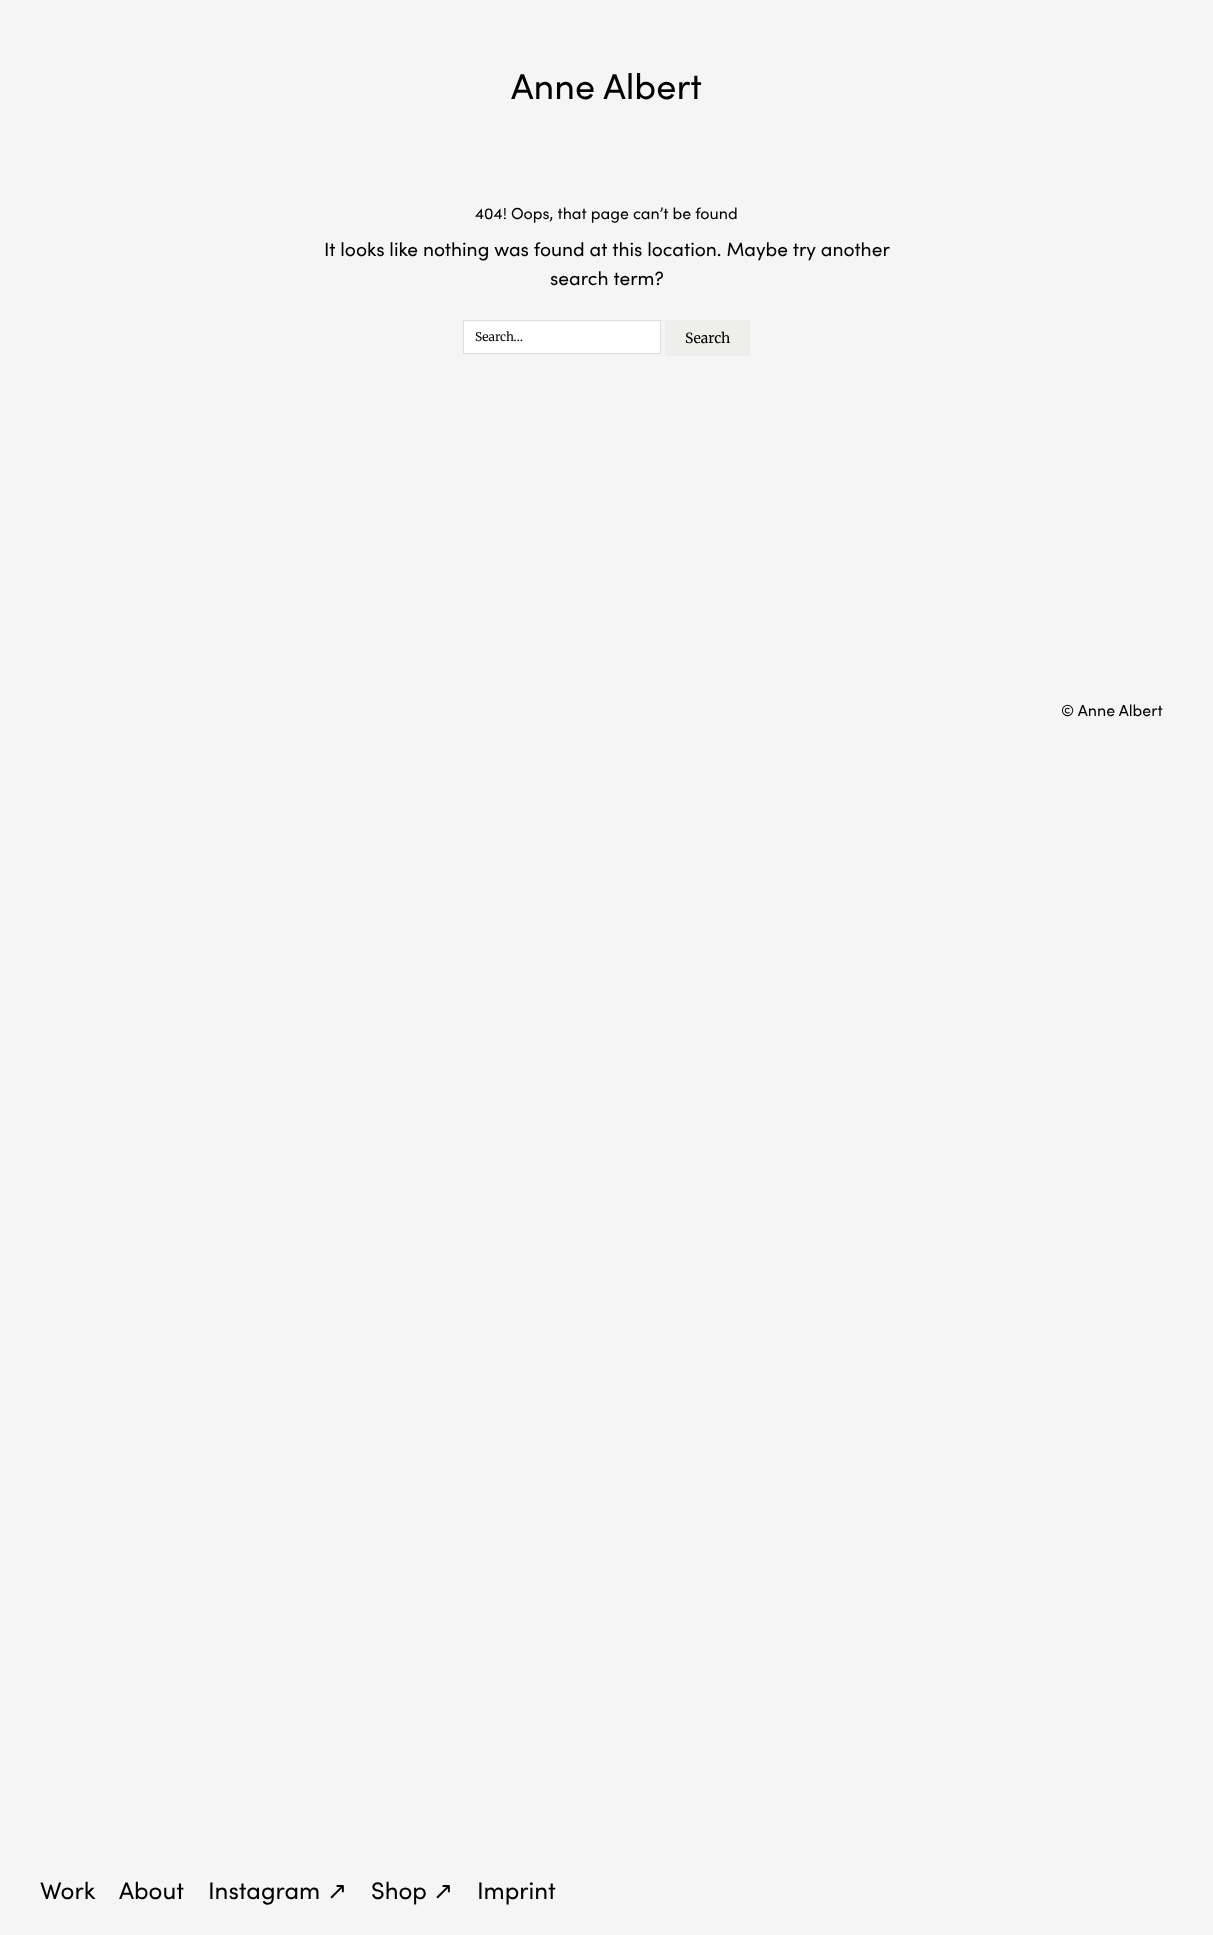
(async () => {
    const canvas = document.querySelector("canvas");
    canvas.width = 1213;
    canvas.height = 1935;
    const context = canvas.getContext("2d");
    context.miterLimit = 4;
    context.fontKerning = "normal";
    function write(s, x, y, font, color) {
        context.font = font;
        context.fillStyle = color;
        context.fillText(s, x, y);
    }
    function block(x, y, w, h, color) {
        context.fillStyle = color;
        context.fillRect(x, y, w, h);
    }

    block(0, 0, 1213, 1935, "rgb(245, 245, 245)");
    write("Anne Albert", 511, 99, "36px Sofia", "rgb(0, 0, 0)");
    write("Work", 40, 1899, "24px Sofia", "rgb(0, 0, 0)");
    write("About", 119, 1899, "24px Sofia", "rgb(0, 0, 0)");
    write("Instagram", 208, 1899, "24px Sofia", "rgb(0, 0, 0)");
    write("↗︎", 327, 1899, "24px DejaVu Sans", "rgb(0, 0, 0)");
    write("Shop", 371, 1899, "24px Sofia", "rgb(0, 0, 0)");
    write("↗︎", 433, 1899, "24px DejaVu Sans", "rgb(0, 0, 0)");
    write("Imprint", 477, 1899, "24px Sofia", "rgb(0, 0, 0)");
    write("404! Oops, that page can’t be found", 475, 219, "16px Sofia", "rgb(0, 0, 0)");
    write("It looks like nothing was found at this location. Maybe try another", 324, 256, "19.2px Sofia", "rgb(0, 0, 0)");
    write("search term?", 550, 285, "19.2px Sofia", "rgb(0, 0, 0)");
    context.fillStyle = "rgb(255, 255, 255)";
    context.beginPath();
    context.rect(463.5, 320.5, 197, 33);
    context.fill();
    context.strokeStyle = "rgb(221, 221, 221)";
    context.stroke();
    write("Search…", 475, 341, "12px Merriweather", "rgb(0, 0, 0)");
    block(665, 320, 85, 36, "rgb(238, 238, 236)");
    write("Search", 685, 343, "14px Merriweather", "rgb(0, 0, 0)");
    write("© Anne Albert", 1061, 716, "16px Sofia", "rgb(0, 0, 0)");
})();
